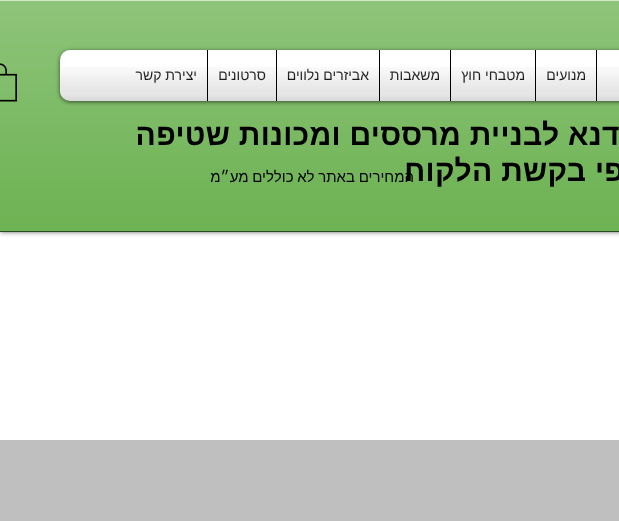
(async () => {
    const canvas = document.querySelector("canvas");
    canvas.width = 619;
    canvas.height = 521;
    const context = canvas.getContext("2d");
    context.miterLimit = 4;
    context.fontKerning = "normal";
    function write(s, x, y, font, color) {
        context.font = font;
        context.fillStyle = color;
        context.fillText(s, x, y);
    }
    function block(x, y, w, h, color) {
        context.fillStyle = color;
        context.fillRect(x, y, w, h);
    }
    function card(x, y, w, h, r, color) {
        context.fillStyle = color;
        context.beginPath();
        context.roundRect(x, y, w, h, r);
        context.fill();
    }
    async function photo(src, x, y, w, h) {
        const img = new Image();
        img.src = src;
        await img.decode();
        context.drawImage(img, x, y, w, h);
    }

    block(0, 0, 619, 521, "rgb(255, 255, 255)");
    context.fillStyle = "rgba(0, 0, 0, 0.6)";
    context.filter = "blur(2.5px)";
    context.beginPath();
    context.rect(0, 0, 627, 232);
    context.fill();
    context.filter = "none";
    block(0, 1, 619, 230, "rgb(104, 176, 77)");
    await photo("media/1.png", 0, 1, 619, 230);
    block(0, 231, 619, 1, "rgb(44, 72, 33)");
    block(0, 0, 619, 1, "rgb(210, 232, 202)");
    context.fillStyle = "rgba(0, 0, 0, 0.6)";
    context.filter = "blur(2px)";
    context.beginPath();
    context.roundRect(60, 51, 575, 51, 10);
    context.fill();
    context.filter = "none";
    card(60, 50, 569, 51, 10, "rgb(255, 255, 255)");
    await photo("media/2.png", 60, 50, 9, 9);
    await photo("media/3.png", 60, 67, 76, 34);
    block(596, 50, 1, 51, "rgb(0, 0, 0)");
    await photo("media/4.png", 608, 71, 11, 9);
    await photo("media/5.png", 597, 67, 22, 34);
    block(535, 50, 1, 51, "rgb(0, 0, 0)");
    context.direction = "rtl";
    write("מנועים", 586, 80, "14px Liberation Sans", "rgb(0, 0, 0)");
    await photo("media/6.png", 547, 71, 38, 9);
    await photo("media/7.png", 536, 67, 60, 34);
    block(450, 50, 1, 51, "rgb(0, 0, 0)");
    write("מטבחי חוץ", 525, 80, "14px Liberation Sans", "rgb(0, 0, 0)");
    await photo("media/8.png", 461, 71, 64, 12);
    await photo("media/9.png", 451, 67, 84, 34);
    block(379, 50, 1, 51, "rgb(0, 0, 0)");
    write("משאבות", 440, 80, "14px Liberation Sans", "rgb(0, 0, 0)");
    await photo("media/10.png", 390, 71, 49, 9);
    await photo("media/11.png", 380, 67, 70, 34);
    block(276, 50, 1, 51, "rgb(0, 0, 0)");
    write("אביזרים נלווים", 369, 80, "14px Liberation Sans", "rgb(0, 0, 0)");
    await photo("media/12.png", 288, 68, 81, 12);
    await photo("media/13.png", 277, 67, 102, 34);
    block(207, 50, 1, 51, "rgb(0, 0, 0)");
    write("סרטונים", 266, 80, "14px Liberation Sans", "rgb(0, 0, 0)");
    await photo("media/14.png", 219, 71, 47, 9);
    await photo("media/15.png", 208, 67, 68, 34);
    context.fillStyle = "rgb(255, 255, 255)";
    context.beginPath();
    context.roundRect(126, 50, 81, 51, [10, 0, 0, 10]);
    context.fill();
    write("יצירת קשר", 197, 80, "14px Liberation Sans", "rgb(0, 0, 0)");
    await photo("media/16.png", 136, 71, 60, 12);
    await photo("media/17.png", 126, 67, 81, 34);
    await photo("media/18.png", 0, 63, 17, 39);
    context.letterSpacing = "0.3px";
    write("סדנא לבניית מרססים ומכונות שטיפה", 641, 145, "bold 30px Liberation Sans", "rgb(0, 0, 0)");
    write("לפי בקשת הלקוח", 641, 181, "bold 30px Liberation Sans", "rgb(0, 0, 0)");
    context.letterSpacing = "0px";
    context.wordSpacing = "-0.5px";
    write("המחירים באתר לא כוללים מע״מ", 414, 182, "15px Liberation Sans", "rgb(0, 0, 0)");
    block(0, 440, 619, 81, "rgb(191, 191, 191)");
})();
